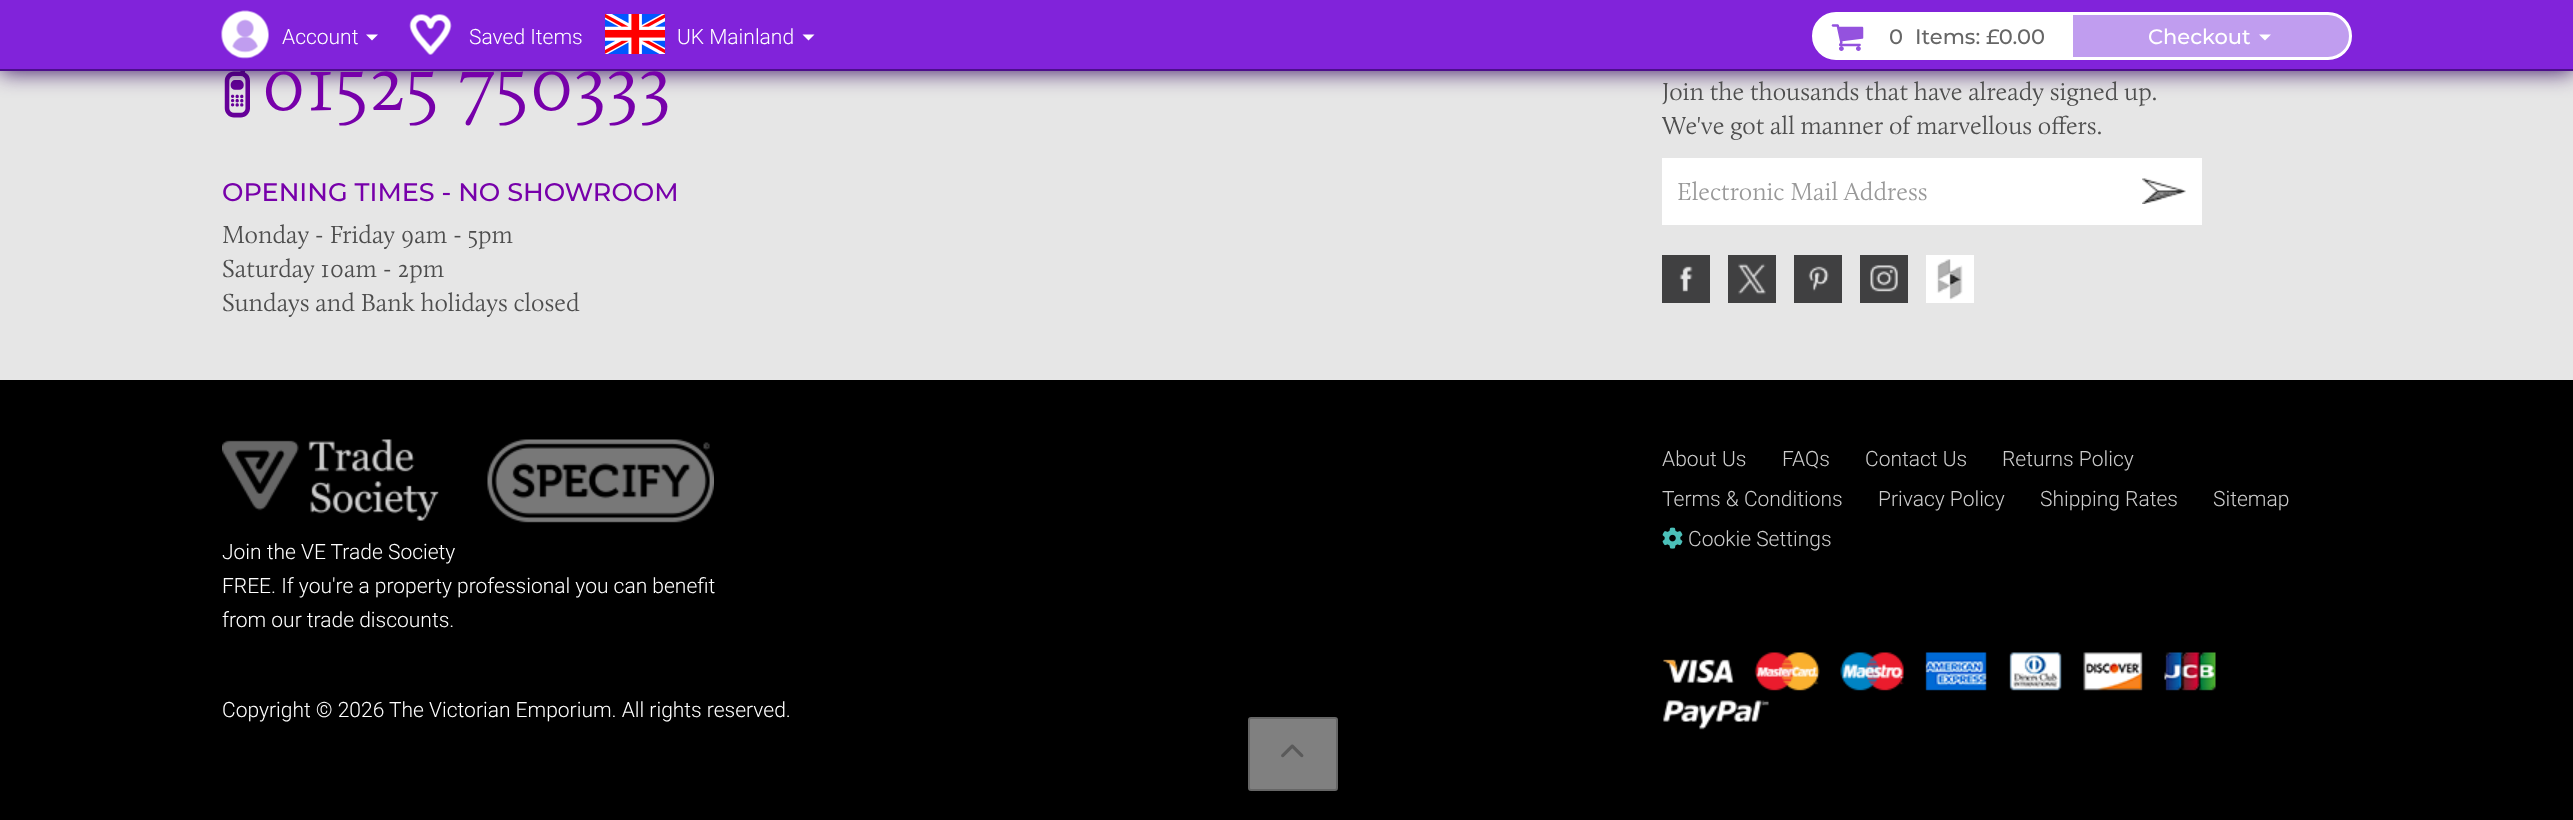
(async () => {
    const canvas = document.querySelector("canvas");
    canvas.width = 2573;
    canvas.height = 820;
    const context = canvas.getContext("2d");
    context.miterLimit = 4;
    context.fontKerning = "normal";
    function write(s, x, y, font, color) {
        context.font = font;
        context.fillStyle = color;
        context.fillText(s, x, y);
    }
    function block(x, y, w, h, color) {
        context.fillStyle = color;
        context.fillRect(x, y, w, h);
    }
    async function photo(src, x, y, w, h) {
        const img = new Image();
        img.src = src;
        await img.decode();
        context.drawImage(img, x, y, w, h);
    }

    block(0, 0, 2573, 820, "rgb(230, 230, 230)");
    await photo("media/5.png", 224, 71, 26, 47);
    context.fillStyle = "rgba(43, 0, 88, 0.9)";
    context.filter = "blur(11px)";
    context.beginPath();
    context.rect(0, 2, 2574, 70);
    context.fill();
    context.filter = "none";
    block(0, 0, 2573, 69, "rgb(129, 35, 218)");
    block(0, 69, 2573, 2, "rgb(77, 14, 140)");
    await photo("media/1.png", 221, 10, 48, 49);
    write("Account", 282, 44, "300 21px Roboto", "rgb(255, 255, 255)");
    context.beginPath();
    context.moveTo(366, 34.5);
    context.lineTo(378, 34.5);
    context.lineTo(372, 40.5);
    context.closePath();
    context.fill();
    await photo("media/2.png", 409, 14, 43, 41);
    write("Saved Items", 469, 44, "300 21px Roboto", "rgb(255, 255, 255)");
    await photo("media/3.png", 605, 14, 60, 40);
    write("UK Mainland", 677, 44, "300 21px Roboto", "rgb(255, 255, 255)");
    context.beginPath();
    context.moveTo(802.5, 34.5);
    context.lineTo(814.5, 34.5);
    context.lineTo(808.5, 40.5);
    context.closePath();
    context.fill();
    context.beginPath();
    context.roundRect(1813.5, 13.5, 257, 45, [22.5, 0, 0, 22.5]);
    context.fill();
    context.strokeStyle = "rgb(255, 255, 255)";
    context.lineWidth = 3;
    context.stroke();
    await photo("media/4.png", 1831, 24, 33, 27);
    write("0", 1889, 44, "500 21px Montserrat", "rgb(102, 102, 102)");
    write("Items:", 1915, 44, "500 21px Montserrat", "rgb(102, 102, 102)");
    write("£0.00", 1986, 44, "500 21px Montserrat", "rgb(102, 102, 102)");
    context.fillStyle = "rgb(192, 157, 239)";
    context.beginPath();
    context.roundRect(2071.5, 13.5, 279, 45, [0, 22.5, 22.5, 0]);
    context.fill();
    context.stroke();
    write("Checkout", 2148, 44, "500 21px Montserrat", "rgb(255, 255, 255)");
    context.beginPath();
    context.moveTo(2259, 34.5);
    context.lineTo(2271, 34.5);
    context.lineTo(2265, 40.5);
    context.closePath();
    context.fill();
    write("01525 750333", 261, 110, "300 81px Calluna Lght", "rgb(119, 0, 170)");
    write("OPENING TIMES - NO SHOWROOM", 222, 201, "500 25.5px Montserrat", "rgb(119, 0, 170)");
    write("Monday - Friday 9am - 5pm", 222, 243, "300 25.5px Calluna Lght", "rgb(77, 77, 77)");
    write("Saturday 10am - 2pm", 222, 277, "300 25.5px Calluna Lght", "rgb(77, 77, 77)");
    write("Sundays and Bank holidays closed", 222, 311, "300 25.5px Calluna Lght", "rgb(77, 77, 77)");
    write("Join the thousands that have already signed up.", 1662, 100, "300 25.5px Calluna Lght", "rgb(77, 77, 77)");
    write("We've got all manner of marvellous offers.", 1662, 134, "300 25.5px Calluna Lght", "rgb(77, 77, 77)");
    block(1662, 158, 540, 67, "rgb(255, 255, 255)");
    write("Electronic Mail Address", 1677, 200, "300 25.5px Calluna Lght", "rgb(153, 153, 153)");
    await photo("media/6.png", 2142, 178, 44, 26);
    await photo("media/7.png", 1662, 255, 48, 48);
    await photo("media/8.png", 1728, 255, 48, 48);
    await photo("media/9.png", 1794, 255, 48, 48);
    await photo("media/10.png", 1860, 255, 48, 48);
    await photo("media/11.png", 1926, 255, 48, 48);
    block(0, 380, 2573, 440, "rgb(0, 0, 0)");
    write("About Us", 1662, 466, "300 21px Roboto", "rgb(204, 204, 204)");
    write("FAQs", 1782, 466, "300 21px Roboto", "rgb(204, 204, 204)");
    write("Contact Us", 1865, 466, "300 21px Roboto", "rgb(204, 204, 204)");
    write("Returns Policy", 2002, 466, "300 21px Roboto", "rgb(204, 204, 204)");
    write("Terms & Conditions", 1662, 506, "300 21px Roboto", "rgb(204, 204, 204)");
    write("Privacy Policy", 1878, 506, "300 21px Roboto", "rgb(204, 204, 204)");
    write("Shipping Rates", 2040, 506, "300 21px Roboto", "rgb(204, 204, 204)");
    write("Sitemap", 2213, 506, "300 21px Roboto", "rgb(204, 204, 204)");
    await photo("media/12.png", 1662, 527, 21, 22);
    write("Cookie Settings", 1688, 546, "300 21px Roboto", "rgb(204, 204, 204)");
    await photo("media/13.png", 1663, 652, 553, 78);
    await photo("media/14.png", 222, 439, 217, 82);
    await photo("media/15.png", 487, 439, 227, 84);
    write("Join the VE Trade Society", 222, 559, "300 21px Roboto", "rgb(255, 255, 255)");
    write("FREE. If you're a property professional you can benefit", 222, 593, "300 21px Roboto", "rgb(255, 255, 255)");
    write("from our trade discounts.", 222, 627, "300 21px Roboto", "rgb(255, 255, 255)");
    write("Copyright © 2026 The Victorian Emporium. All rights reserved.", 222, 717, "300 21px Roboto", "rgb(255, 255, 255)");
    context.fillStyle = "rgb(128, 128, 128)";
    context.beginPath();
    context.roundRect(1249, 718, 88, 72, 2);
    context.fill();
    context.strokeStyle = "rgb(102, 102, 102)";
    context.lineWidth = 2;
    context.stroke();
    await photo("media/16.png", 1281, 744, 23, 14);
})();
